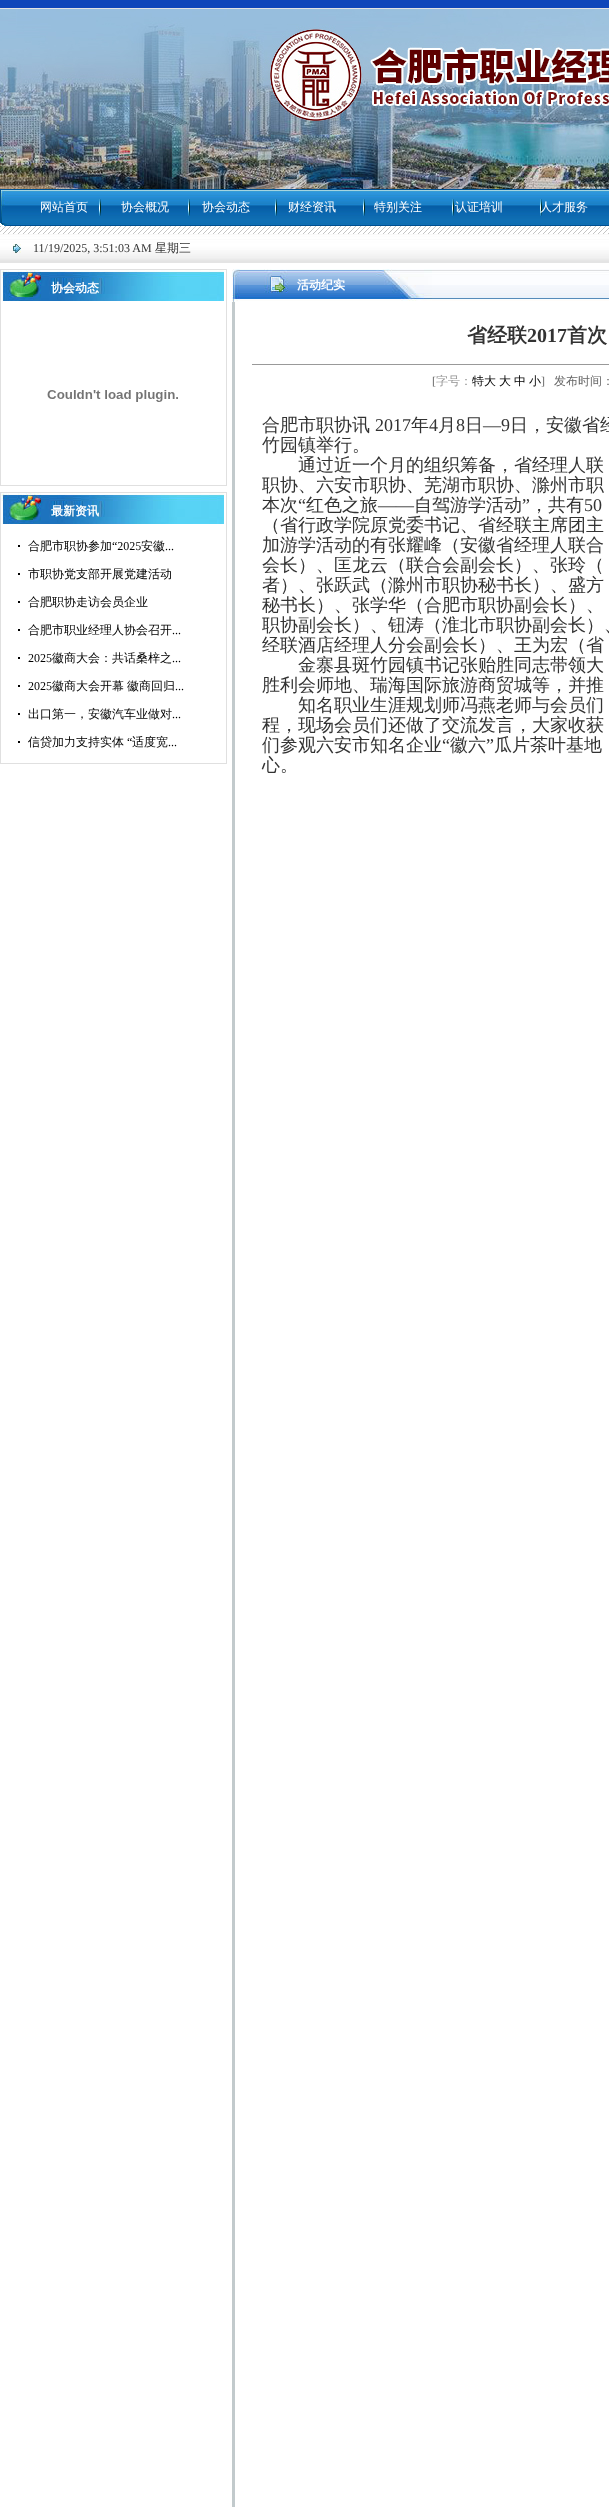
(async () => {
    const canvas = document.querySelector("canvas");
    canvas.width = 609;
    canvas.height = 2507;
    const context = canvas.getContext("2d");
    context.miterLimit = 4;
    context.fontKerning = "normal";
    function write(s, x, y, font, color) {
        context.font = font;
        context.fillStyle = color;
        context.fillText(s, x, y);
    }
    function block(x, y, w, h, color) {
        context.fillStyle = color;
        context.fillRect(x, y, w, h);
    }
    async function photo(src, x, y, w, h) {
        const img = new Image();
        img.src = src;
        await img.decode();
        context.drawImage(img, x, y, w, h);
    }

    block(0, 0, 609, 2507, "rgb(255, 255, 255)");
    await photo("media/1.png", 0, 0, 609, 9);
    await photo("media/2.png", 0, 9, 609, 180);
    await photo("media/3.png", 0, 189, 609, 37);
    write("网站首页", 40, 211, "500 12px WenQuanYi Zen Hei", "rgb(255, 255, 255)");
    write("协会概况", 121, 211, "500 12px WenQuanYi Zen Hei", "rgb(255, 255, 255)");
    write("协会动态", 202, 211, "500 12px WenQuanYi Zen Hei", "rgb(255, 255, 255)");
    write("财经资讯", 288, 211, "500 12px WenQuanYi Zen Hei", "rgb(255, 255, 255)");
    write("特别关注", 374, 211, "500 12px WenQuanYi Zen Hei", "rgb(255, 255, 255)");
    write("认证培训", 455, 211, "500 12px WenQuanYi Zen Hei", "rgb(255, 255, 255)");
    write("人才服务", 540, 211, "500 12px WenQuanYi Zen Hei", "rgb(255, 255, 255)");
    await photo("media/4.png", 0, 226, 609, 8);
    await photo("media/5.png", 0, 234, 609, 29);
    await photo("media/6.png", 13, 244, 8, 9);
    write("11/19/2025, 3:51:03 AM", 33, 252, "12px Liberation Serif", "rgb(51, 51, 51)");
    write("星期三", 155, 252, "500 12px WenQuanYi Zen Hei", "rgb(51, 51, 51)");
    context.strokeStyle = "rgb(224, 224, 224)";
    context.strokeRect(0.5, 269.5, 226, 216);
    await photo("media/7.png", 1, 270, 223, 31);
    write("协会动态", 51, 292, "bold 12px WenQuanYi Zen Hei", "rgb(255, 255, 255)");
    await photo("media/8.png", 47, 390, 131, 12);
    context.strokeRect(0.5, 492.5, 226, 271);
    await photo("media/7.png", 1, 493, 223, 31);
    write("最新资讯", 51, 515, "bold 12px WenQuanYi Zen Hei", "rgb(255, 255, 255)");
    block(18, 545, 2, 2, "rgb(1, 1, 1)");
    write("合肥市职协参加", 28, 550, "500 12px WenQuanYi Zen Hei", "rgb(0, 0, 0)");
    write("“2025", 112, 550, "12px Liberation Serif", "rgb(0, 0, 0)");
    write("安徽", 141, 550, "500 12px WenQuanYi Zen Hei", "rgb(0, 0, 0)");
    write("...", 165, 550, "12px Liberation Serif", "rgb(0, 0, 0)");
    block(18, 573, 2, 2, "rgb(1, 1, 1)");
    write("市职协党支部开展党建活动", 28, 578, "500 12px WenQuanYi Zen Hei", "rgb(0, 0, 0)");
    block(18, 601, 2, 2, "rgb(1, 1, 1)");
    write("合肥职协走访会员企业", 28, 606, "500 12px WenQuanYi Zen Hei", "rgb(0, 0, 0)");
    block(18, 629, 2, 2, "rgb(1, 1, 1)");
    write("合肥市职业经理人协会召开", 28, 634, "500 12px WenQuanYi Zen Hei", "rgb(0, 0, 0)");
    write("...", 172, 634, "12px Liberation Serif", "rgb(0, 0, 0)");
    block(18, 657, 2, 2, "rgb(1, 1, 1)");
    write("2025", 28, 662, "12px Liberation Serif", "rgb(0, 0, 0)");
    write("徽商大会：共话桑梓之", 52, 662, "500 12px WenQuanYi Zen Hei", "rgb(0, 0, 0)");
    write("...", 172, 662, "12px Liberation Serif", "rgb(0, 0, 0)");
    block(18, 685, 2, 2, "rgb(1, 1, 1)");
    write("2025", 28, 690, "12px Liberation Serif", "rgb(0, 0, 0)");
    write("徽商大会开幕", 52, 690, "500 12px WenQuanYi Zen Hei", "rgb(0, 0, 0)");
    write("徽商回归", 127, 690, "500 12px WenQuanYi Zen Hei", "rgb(0, 0, 0)");
    write("...", 175, 690, "12px Liberation Serif", "rgb(0, 0, 0)");
    block(18, 713, 2, 2, "rgb(1, 1, 1)");
    write("出口第一，安徽汽车业做对", 28, 718, "500 12px WenQuanYi Zen Hei", "rgb(0, 0, 0)");
    write("...", 172, 718, "12px Liberation Serif", "rgb(0, 0, 0)");
    block(18, 741, 2, 2, "rgb(1, 1, 1)");
    write("信贷加力支持实体", 28, 746, "500 12px WenQuanYi Zen Hei", "rgb(0, 0, 0)");
    write("“", 127, 746, "12px Liberation Serif", "rgb(0, 0, 0)");
    write("适度宽", 132, 746, "500 12px WenQuanYi Zen Hei", "rgb(0, 0, 0)");
    write("...", 168, 746, "12px Liberation Serif", "rgb(0, 0, 0)");
    await photo("media/9.png", 232, 269, 377, 33);
    write("活动纪实", 297, 289, "bold 12px WenQuanYi Zen Hei", "rgb(255, 255, 255)");
    block(232, 302, 3, 2205, "rgb(194, 202, 204)");
    write("省经联", 467, 342, "bold 20px WenQuanYi Zen Hei", "rgb(51, 51, 51)");
    write("2017", 527, 342, "bold 20px Liberation Serif", "rgb(51, 51, 51)");
    write("首次", 567, 342, "bold 20px WenQuanYi Zen Hei", "rgb(51, 51, 51)");
    block(252, 364, 357, 1, "rgb(153, 153, 153)");
    write("[", 432, 385, "12px Liberation Serif", "rgb(102, 102, 102)");
    write("字号：", 436, 385, "500 12px WenQuanYi Zen Hei", "rgb(146, 146, 146)");
    write("特大", 472, 385, "500 12px WenQuanYi Zen Hei", "rgb(0, 0, 0)");
    write("大", 499, 385, "500 12px WenQuanYi Zen Hei", "rgb(0, 0, 0)");
    write("中", 514, 385, "500 12px WenQuanYi Zen Hei", "rgb(0, 0, 0)");
    write("小", 529, 385, "500 12px WenQuanYi Zen Hei", "rgb(0, 0, 0)");
    write("]", 541, 385, "12px Liberation Serif", "rgb(102, 102, 102)");
    write("发布时间：", 554, 385, "500 12px WenQuanYi Zen Hei", "rgb(102, 102, 102)");
    write("合肥市职协讯", 262, 431, "500 18px WenQuanYi Zen Hei", "rgb(51, 51, 51)");
    write("2017", 375, 431, "18px Liberation Serif", "rgb(51, 51, 51)");
    write("年", 411, 431, "500 18px WenQuanYi Zen Hei", "rgb(51, 51, 51)");
    write("4", 429, 431, "18px Liberation Serif", "rgb(51, 51, 51)");
    write("月", 438, 431, "500 18px WenQuanYi Zen Hei", "rgb(51, 51, 51)");
    write("8", 456, 431, "18px Liberation Serif", "rgb(51, 51, 51)");
    write("日", 465, 431, "500 18px WenQuanYi Zen Hei", "rgb(51, 51, 51)");
    write("—9", 483, 431, "18px Liberation Serif", "rgb(51, 51, 51)");
    write("日，安徽省经", 510, 431, "500 18px WenQuanYi Zen Hei", "rgb(51, 51, 51)");
    write("竹园镇举行。", 262, 451, "500 18px WenQuanYi Zen Hei", "rgb(51, 51, 51)");
    write("通过近一个月的组织筹备，省经理人联", 298, 471, "500 18px WenQuanYi Zen Hei", "rgb(51, 51, 51)");
    write("职协、六安市职协、芜湖市职协、滁州市职", 262, 491, "500 18px WenQuanYi Zen Hei", "rgb(51, 51, 51)");
    write("本次", 262, 511, "500 18px WenQuanYi Zen Hei", "rgb(51, 51, 51)");
    write("“", 298, 511, "18px Liberation Serif", "rgb(51, 51, 51)");
    write("红色之旅", 306, 511, "500 18px WenQuanYi Zen Hei", "rgb(51, 51, 51)");
    write("——", 378, 511, "18px Liberation Serif", "rgb(51, 51, 51)");
    write("自驾游学活动", 414, 511, "500 18px WenQuanYi Zen Hei", "rgb(51, 51, 51)");
    write("”", 522, 511, "18px Liberation Serif", "rgb(51, 51, 51)");
    write("，共有", 530, 511, "500 18px WenQuanYi Zen Hei", "rgb(51, 51, 51)");
    write("50", 584, 511, "18px Liberation Serif", "rgb(51, 51, 51)");
    write("（省行政学院原党委书记、省经联主席团主", 262, 531, "500 18px WenQuanYi Zen Hei", "rgb(51, 51, 51)");
    write("加游学活动的有张耀峰（安徽省经理人联合", 262, 551, "500 18px WenQuanYi Zen Hei", "rgb(51, 51, 51)");
    write("会长）、匡龙云（联合会副会长）、张玲（", 262, 571, "500 18px WenQuanYi Zen Hei", "rgb(51, 51, 51)");
    write("者）、张跃武（滁州市职协秘书长）、盛方", 262, 591, "500 18px WenQuanYi Zen Hei", "rgb(51, 51, 51)");
    write("秘书长）、张学华（合肥市职协副会长）、", 262, 611, "500 18px WenQuanYi Zen Hei", "rgb(51, 51, 51)");
    write("职协副会长）、钮涛（淮北市职协副会长）、", 262, 631, "500 18px WenQuanYi Zen Hei", "rgb(51, 51, 51)");
    write("经联酒店经理人分会副会长）、王为宏（省", 262, 651, "500 18px WenQuanYi Zen Hei", "rgb(51, 51, 51)");
    write("金寨县斑竹园镇书记张贻胜同志带领大", 298, 671, "500 18px WenQuanYi Zen Hei", "rgb(51, 51, 51)");
    write("胜利会师地、瑞海国际旅游商贸城等，并推", 262, 691, "500 18px WenQuanYi Zen Hei", "rgb(51, 51, 51)");
    write("知名职业生涯规划师冯燕老师与会员们", 298, 711, "500 18px WenQuanYi Zen Hei", "rgb(51, 51, 51)");
    write("程，现场会员们还做了交流发言，大家收获", 262, 731, "500 18px WenQuanYi Zen Hei", "rgb(51, 51, 51)");
    write("们参观六安市知名企业", 262, 751, "500 18px WenQuanYi Zen Hei", "rgb(51, 51, 51)");
    write("“", 442, 751, "18px Liberation Serif", "rgb(51, 51, 51)");
    write("徽六", 450, 751, "500 18px WenQuanYi Zen Hei", "rgb(51, 51, 51)");
    write("”", 486, 751, "18px Liberation Serif", "rgb(51, 51, 51)");
    write("瓜片茶叶基地", 494, 751, "500 18px WenQuanYi Zen Hei", "rgb(51, 51, 51)");
    write("心。", 262, 771, "500 18px WenQuanYi Zen Hei", "rgb(51, 51, 51)");
})();
